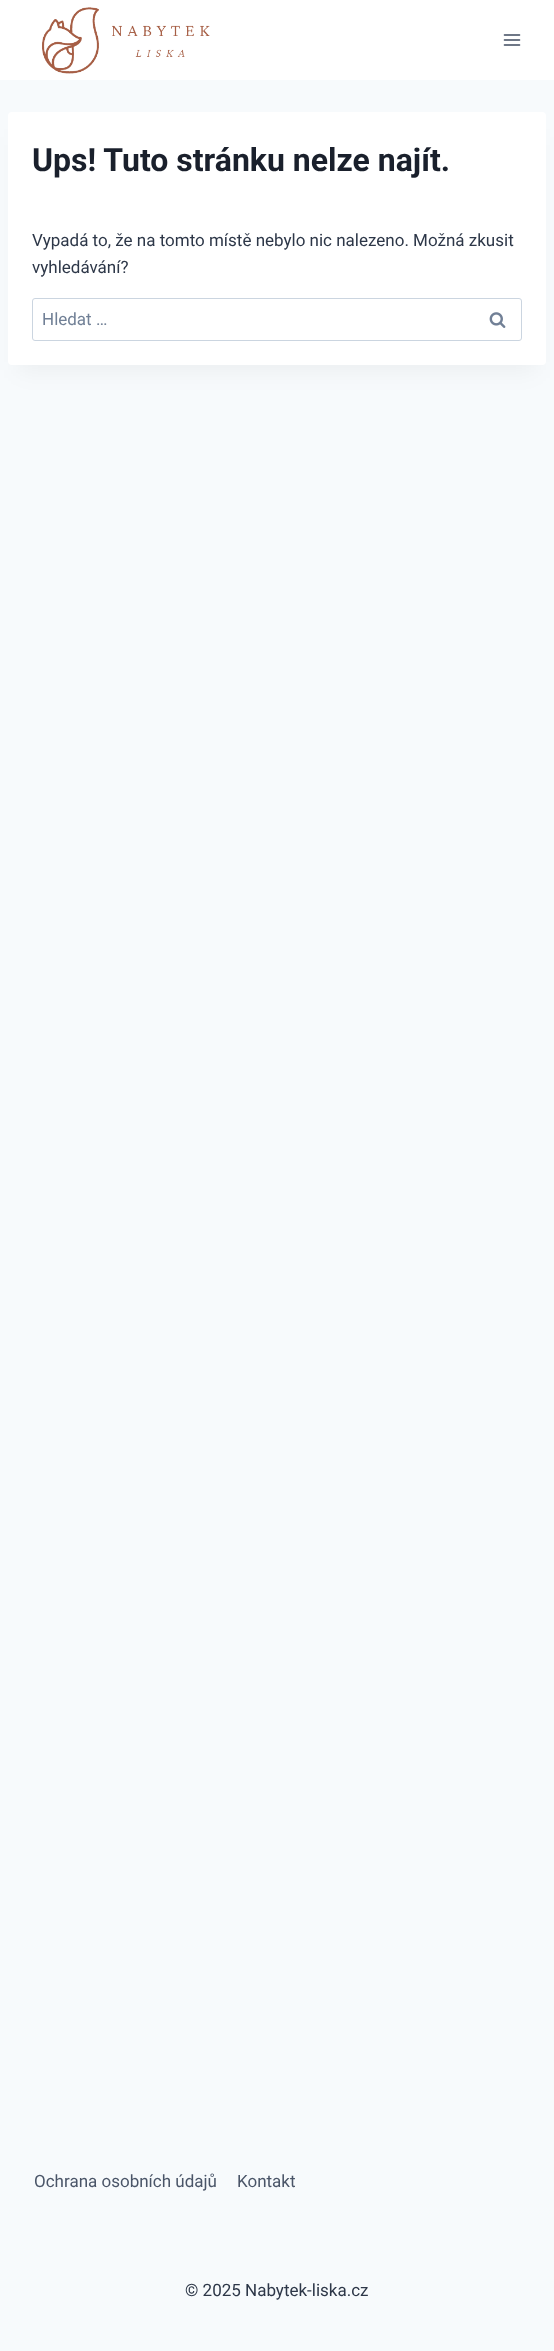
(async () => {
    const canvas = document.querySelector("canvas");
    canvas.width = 554;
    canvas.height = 2351;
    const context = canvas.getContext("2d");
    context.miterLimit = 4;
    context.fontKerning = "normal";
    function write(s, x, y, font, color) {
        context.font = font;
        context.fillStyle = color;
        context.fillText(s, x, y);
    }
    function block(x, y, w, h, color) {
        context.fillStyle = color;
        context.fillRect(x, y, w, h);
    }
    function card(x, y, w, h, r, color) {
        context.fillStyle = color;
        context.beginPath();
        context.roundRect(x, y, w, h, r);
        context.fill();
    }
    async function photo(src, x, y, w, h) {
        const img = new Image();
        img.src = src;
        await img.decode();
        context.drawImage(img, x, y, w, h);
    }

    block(0, 0, 554, 2351, "rgb(247, 250, 252)");
    block(0, 0, 554, 80, "rgb(255, 255, 255)");
    await photo("media/1.png", 42, 7, 168, 67);
    await photo("media/2.png", 503, 34, 18, 12);
    context.fillStyle = "rgba(0, 0, 0, 0.05)";
    context.filter = "blur(12.5px)";
    context.beginPath();
    context.rect(18, 137, 518, 233);
    context.fill();
    context.filter = "none";
    card(8, 112, 538, 253, 4, "rgb(255, 255, 255)");
    write("Ups! Tuto stránku nelze najít.", 32, 171, "bold 32px Roboto", "rgb(26, 32, 44)");
    write("Vypadá to, že na tomto místě nebylo nic nalezeno. Možná zkusit", 32, 246, "17px Roboto", "rgb(45, 55, 72)");
    write("vyhledávání?", 32, 273, "17px Roboto", "rgb(45, 55, 72)");
    context.beginPath();
    context.roundRect(32.5, 298.5, 489, 42, 2.5);
    context.strokeStyle = "rgb(203, 213, 224)";
    context.stroke();
    write("Hledat …", 42, 325, "17px Roboto", "rgb(113, 128, 150)");
    await photo("media/3.png", 489, 312, 17, 16);
    write("Ochrana osobních údajů", 34, 2187, "17px Roboto", "rgb(74, 85, 104)");
    write("Kontakt", 237, 2187, "17px Roboto", "rgb(74, 85, 104)");
    write("© 2025 Nabytek-liska.cz", 185, 2296, "17px Roboto", "rgb(45, 55, 72)");
})();
